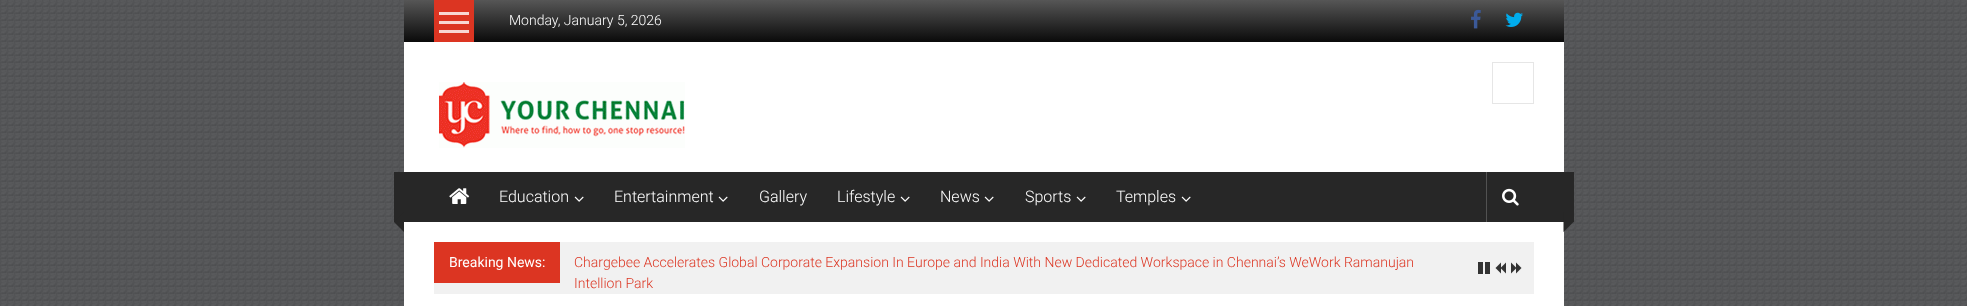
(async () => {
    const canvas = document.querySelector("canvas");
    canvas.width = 1967;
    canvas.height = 306;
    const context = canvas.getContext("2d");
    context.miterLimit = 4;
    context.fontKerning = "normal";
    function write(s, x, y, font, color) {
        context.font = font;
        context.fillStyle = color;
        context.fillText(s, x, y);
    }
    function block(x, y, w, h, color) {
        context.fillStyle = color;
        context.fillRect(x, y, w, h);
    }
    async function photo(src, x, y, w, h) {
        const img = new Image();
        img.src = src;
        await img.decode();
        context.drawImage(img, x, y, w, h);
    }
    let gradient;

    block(0, 0, 1967, 306, "rgb(255, 255, 255)");
    await photo("media/1.png", 0, 0, 1967, 306);
    block(404, 42, 1160, 264, "rgb(255, 255, 255)");
    gradient = context.createLinearGradient(984, 0, 984, 42);
    gradient.addColorStop(0, "rgb(86, 86, 86)");
    gradient.addColorStop(1, "rgb(10, 10, 10)");
    context.fillStyle = gradient;
    context.fillRect(404, 0, 1160, 42);
    block(434, 0, 40, 42, "rgb(220, 53, 34)");
    block(439, 12, 30, 3, "rgb(248, 215, 211)");
    block(439, 21, 30, 3, "rgb(248, 215, 211)");
    block(439, 30, 30, 3, "rgb(248, 215, 211)");
    write("Monday, January 5, 2026", 509, 25, "300 14px Roboto", "rgb(255, 255, 255)");
    await photo("media/2.png", 1471, 9, 10, 20);
    await photo("media/3.png", 1505, 12, 18, 15);
    await photo("media/4.png", 439, 82, 246, 66);
    context.strokeStyle = "rgb(230, 230, 230)";
    context.strokeRect(1492.5, 62.5, 41, 41);
    block(394, 172, 1170, 50, "rgb(39, 39, 39)");
    await photo("media/5.png", 449, 188, 21, 16);
    write("Education", 499, 202, "300 16px Roboto", "rgb(255, 255, 255)");
    await photo("media/6.png", 574, 196, 10, 6);
    write("Entertainment", 614, 202, "300 16px Roboto", "rgb(255, 255, 255)");
    await photo("media/6.png", 718, 196, 10, 6);
    write("Gallery", 759, 202, "300 16px Roboto", "rgb(255, 255, 255)");
    write("Lifestyle", 837, 202, "300 16px Roboto", "rgb(255, 255, 255)");
    await photo("media/6.png", 900, 196, 10, 6);
    write("News", 940, 202, "300 16px Roboto", "rgb(255, 255, 255)");
    await photo("media/6.png", 984, 196, 10, 6);
    write("Sports", 1025, 202, "300 16px Roboto", "rgb(255, 255, 255)");
    await photo("media/6.png", 1076, 196, 10, 6);
    write("Temples", 1116, 202, "300 16px Roboto", "rgb(255, 255, 255)");
    await photo("media/6.png", 1181, 196, 10, 6);
    block(1486, 172, 1, 50, "rgb(82, 82, 82)");
    await photo("media/7.png", 1502, 188, 17, 18);
    context.fillStyle = "rgb(39, 39, 39)";
    context.beginPath();
    context.moveTo(404, 212);
    context.lineTo(404, 232);
    context.lineTo(394, 222);
    context.closePath();
    context.fill();
    context.beginPath();
    context.moveTo(1563.5, 232);
    context.lineTo(1563.5, 212);
    context.lineTo(1573.5, 222);
    context.closePath();
    context.fill();
    block(1564, 172, 10, 50, "rgb(39, 39, 39)");
    block(434, 242, 1100, 52, "rgb(241, 241, 241)");
    block(434, 242, 126, 41, "rgb(220, 53, 34)");
    write("Breaking News:", 449, 267, "14px Roboto", "rgb(255, 255, 255)");
    write("Chargebee Accelerates Global Corporate Expansion In Europe and India With New Dedicated Workspace in Chennai’s WeWork Ramanujan", 574, 267, "300 14px Roboto", "rgb(220, 53, 34)");
    write("Intellion Park", 574, 288, "300 14px Roboto", "rgb(220, 53, 34)");
    await photo("media/8.png", 1478, 262, 12, 12);
    await photo("media/9.png", 1495, 262, 11, 12);
    await photo("media/10.png", 1511, 262, 11, 12);
})();
